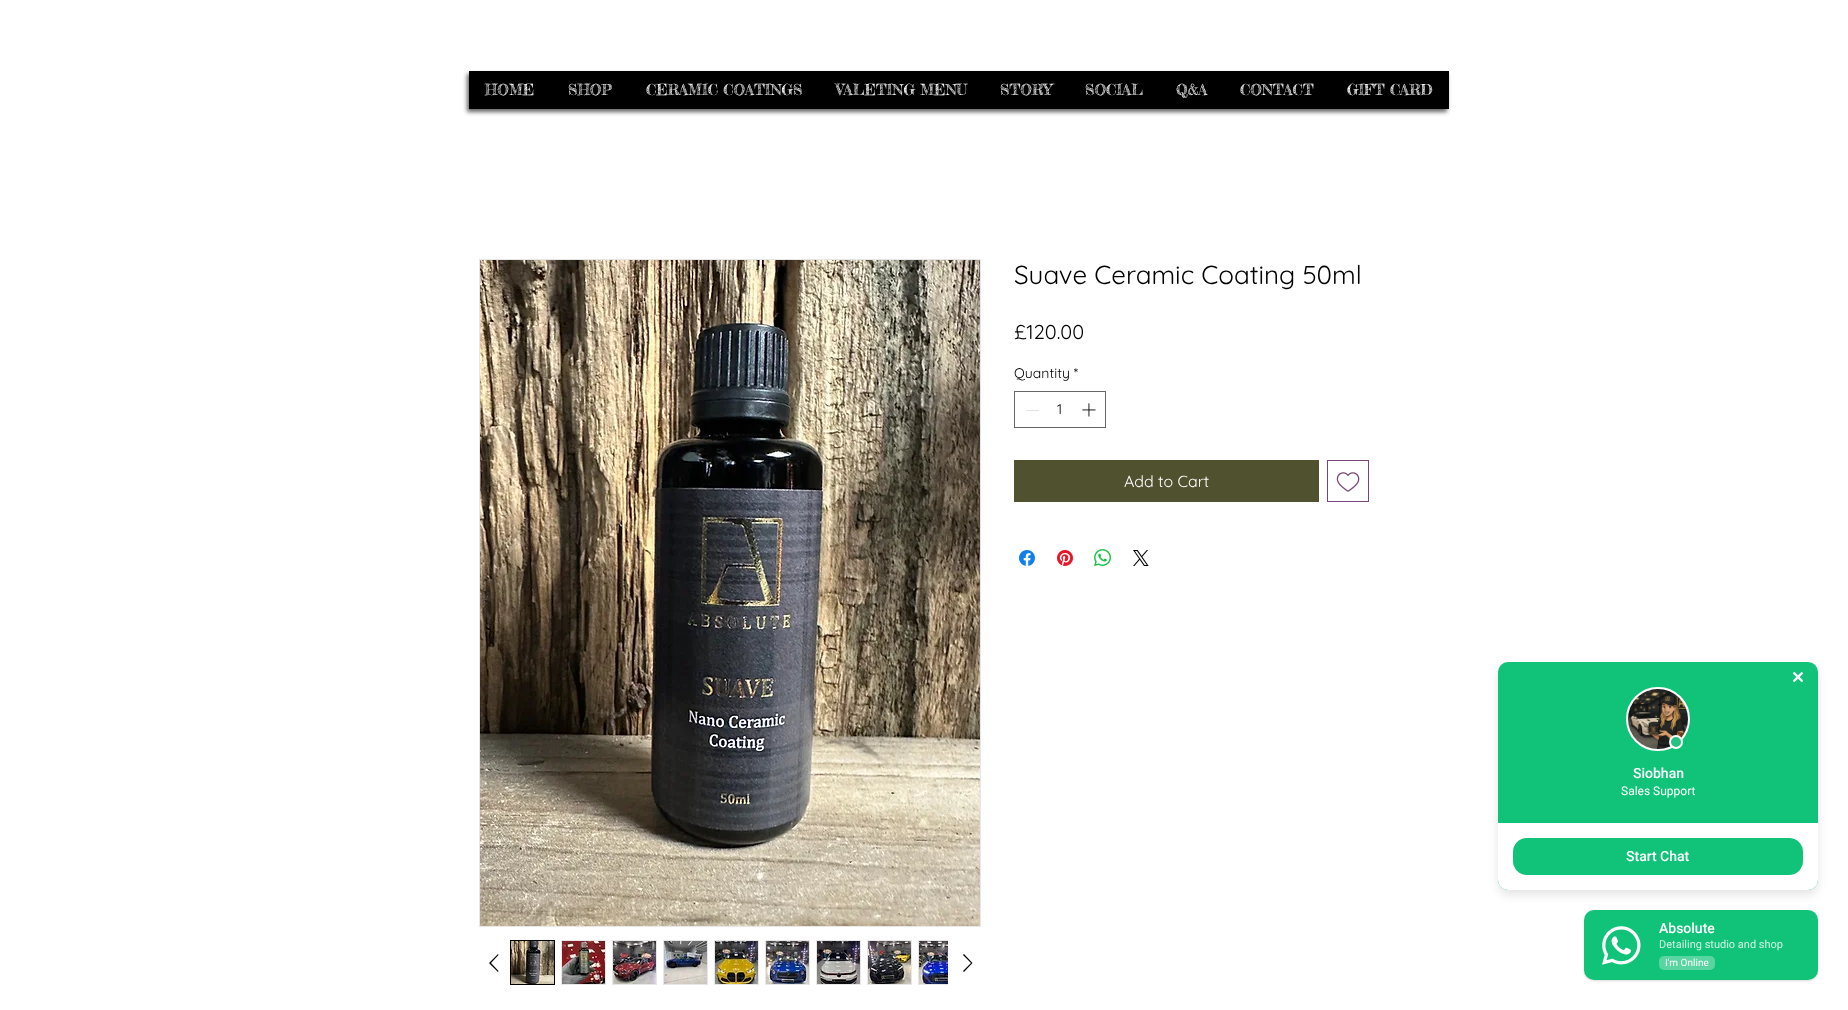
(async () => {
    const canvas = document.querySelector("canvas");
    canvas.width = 1848;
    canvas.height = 1010;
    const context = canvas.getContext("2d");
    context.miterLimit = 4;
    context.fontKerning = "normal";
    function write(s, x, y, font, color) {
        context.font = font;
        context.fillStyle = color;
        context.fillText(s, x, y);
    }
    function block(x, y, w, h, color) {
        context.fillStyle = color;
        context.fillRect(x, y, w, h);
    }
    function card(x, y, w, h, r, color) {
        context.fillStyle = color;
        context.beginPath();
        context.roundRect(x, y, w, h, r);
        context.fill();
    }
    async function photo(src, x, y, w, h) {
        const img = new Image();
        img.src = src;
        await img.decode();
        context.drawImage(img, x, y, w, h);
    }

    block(0, 0, 1848, 1010, "rgb(255, 255, 255)");
    context.fillStyle = "rgba(0, 0, 0, 0.6)";
    context.filter = "blur(2px)";
    context.beginPath();
    context.rect(467, 74, 980, 38);
    context.fill();
    context.filter = "none";
    block(469, 71, 980, 38, "rgb(0, 0, 0)");
    write("HOME", 485, 95, "15px Fredericka the Great", "rgb(255, 255, 255)");
    write("SHOP", 568, 95, "15px Fredericka the Great", "rgb(255, 255, 255)");
    write("CERAMIC COATINGS", 646, 95, "15px Fredericka the Great", "rgb(255, 255, 255)");
    write("VALETING MENU", 836, 95, "15px Fredericka the Great", "rgb(255, 255, 255)");
    write("STORY", 1000, 95, "15px Fredericka the Great", "rgb(255, 255, 255)");
    write("SOCIAL", 1085, 95, "15px Fredericka the Great", "rgb(255, 255, 255)");
    write("Q&A", 1176, 95, "15px Fredericka the Great", "rgb(255, 255, 255)");
    write("CONTACT", 1240, 95, "15px Fredericka the Great", "rgb(255, 255, 255)");
    write("GIFT CARD", 1347, 95, "15px Fredericka the Great", "rgb(255, 255, 255)");
    context.strokeStyle = "rgb(232, 230, 230)";
    context.strokeRect(479.5, 259.5, 501, 667);
    await photo("media/1.png", 480, 260, 500, 666);
    context.fillStyle = "rgb(0, 0, 0)";
    context.beginPath();
    context.moveTo(498, 954);
    context.lineTo(498.5, 955);
    context.lineTo(491, 963);
    context.lineTo(498.5, 971);
    context.lineTo(498, 972);
    context.lineTo(489, 963);
    context.closePath();
    context.fill("evenodd");
    context.strokeStyle = "rgb(0, 0, 0)";
    context.strokeRect(510.5, 940.5, 44, 44);
    await photo("media/2.png", 511, 941, 43, 43);
    block(561, 940, 45, 45, "rgb(232, 230, 230)");
    await photo("media/3.png", 562, 941, 43, 43);
    block(612, 940, 45, 45, "rgb(232, 230, 230)");
    await photo("media/4.png", 613, 941, 43, 43);
    block(663, 940, 45, 45, "rgb(232, 230, 230)");
    await photo("media/5.png", 664, 941, 43, 43);
    block(714, 940, 45, 45, "rgb(232, 230, 230)");
    await photo("media/6.png", 715, 941, 43, 43);
    block(765, 940, 45, 45, "rgb(232, 230, 230)");
    await photo("media/7.png", 766, 941, 43, 43);
    block(816, 940, 45, 45, "rgb(232, 230, 230)");
    await photo("media/8.png", 817, 941, 43, 43);
    block(867, 940, 45, 45, "rgb(232, 230, 230)");
    await photo("media/9.png", 868, 941, 43, 43);
    block(918, 940, 30, 45, "rgb(232, 230, 230)");
    await photo("media/10.png", 919, 941, 29, 43);
    context.fillStyle = "rgb(0, 0, 0)";
    context.beginPath();
    context.moveTo(964, 954);
    context.lineTo(972.5, 963);
    context.lineTo(964, 972);
    context.lineTo(963, 971);
    context.lineTo(971, 963);
    context.lineTo(963, 955);
    context.closePath();
    context.fill("evenodd");
    write("Suave Ceramic Coating 50ml", 1014, 284, "26px Quicksand", "rgb(0, 0, 0)");
    write("£120.00", 1014, 339, "20px Quicksand", "rgb(0, 0, 0)");
    write("Quantity *", 1014, 378, "14px Quicksand", "rgb(0, 0, 0)");
    context.strokeStyle = "rgb(102, 102, 102)";
    context.strokeRect(1014.5, 391.5, 91, 36);
    block(1026, 410, 13, 1, "rgb(227, 227, 227)");
    write("1", 1057, 414, "14px Quicksand", "rgb(0, 0, 0)");
    await photo("media/11.png", 1082, 403, 14, 14);
    block(1014, 460, 305, 42, "rgb(80, 81, 46)");
    write("Add to Cart", 1124, 487, "16px Quicksand", "rgb(255, 255, 255)");
    context.strokeStyle = "rgb(121, 69, 119)";
    context.strokeRect(1327.5, 460.5, 41, 41);
    await photo("media/12.png", 1336, 472, 24, 20);
    await photo("media/13.png", 1019, 550, 16, 16);
    await photo("media/14.png", 1057, 550, 16, 16);
    await photo("media/15.png", 1094, 549, 17, 17);
    await photo("media/16.png", 1133, 550, 16, 16);
    context.fillStyle = "rgba(0, 0, 0, 0.15)";
    context.filter = "blur(1px)";
    context.beginPath();
    context.roundRect(1584, 911, 234, 70, 10);
    context.fill();
    context.filter = "none";
    card(1584, 910, 234, 70, 10, "rgb(16, 195, 121)");
    context.fillStyle = "rgba(0, 0, 0, 0.1)";
    context.filter = "blur(5px)";
    context.beginPath();
    context.roundRect(1498, 667, 320, 228, 10);
    context.fill();
    context.filter = "none";
    context.fillStyle = "rgb(16, 195, 121)";
    context.beginPath();
    context.roundRect(1498, 662, 320, 20, [10, 10, 0, 0]);
    context.fill();
    await photo("media/17.png", 1793, 672, 10, 10);
    context.beginPath();
    context.roundRect(1498, 682, 320, 208, [0, 0, 10, 10]);
    context.fill();
    context.fillStyle = "rgb(255, 255, 255)";
    context.beginPath();
    context.arc(1658, 719, 31, 0, Math.PI * 2);
    context.fill();
    context.strokeStyle = "rgb(255, 255, 255)";
    context.lineWidth = 2;
    context.stroke();
    await photo("media/18.png", 1628, 689, 60, 60);
    context.fillStyle = "rgb(38, 194, 129)";
    context.beginPath();
    context.arc(1676, 742, 6, 0, Math.PI * 2);
    context.fill();
    context.stroke();
    write("Siobhan", 1633, 778, "500 14px Roboto", "rgb(255, 255, 255)");
    write("Sales Support", 1621, 795, "12px Roboto", "rgb(255, 255, 255)");
    context.beginPath();
    context.roundRect(1498, 823, 320, 67, [0, 0, 10, 10]);
    context.fill();
    card(1513, 838, 290, 37, 14, "rgb(16, 195, 121)");
    write("Start Chat", 1626, 861, "500 14px Roboto", "rgb(255, 255, 255)");
    await photo("media/19.png", 1602, 926, 39, 39);
    write("Absolute", 1659, 933, "500 14px Roboto", "rgb(255, 255, 255)");
    write("Detailing studio and shop", 1659, 948, "11px Roboto", "rgb(207, 243, 228)");
    card(1659, 956, 56, 14, 5, "rgb(88, 213, 161)");
    write("I'm Online", 1665, 966, "10px Roboto", "rgb(255, 255, 255)");
})();
